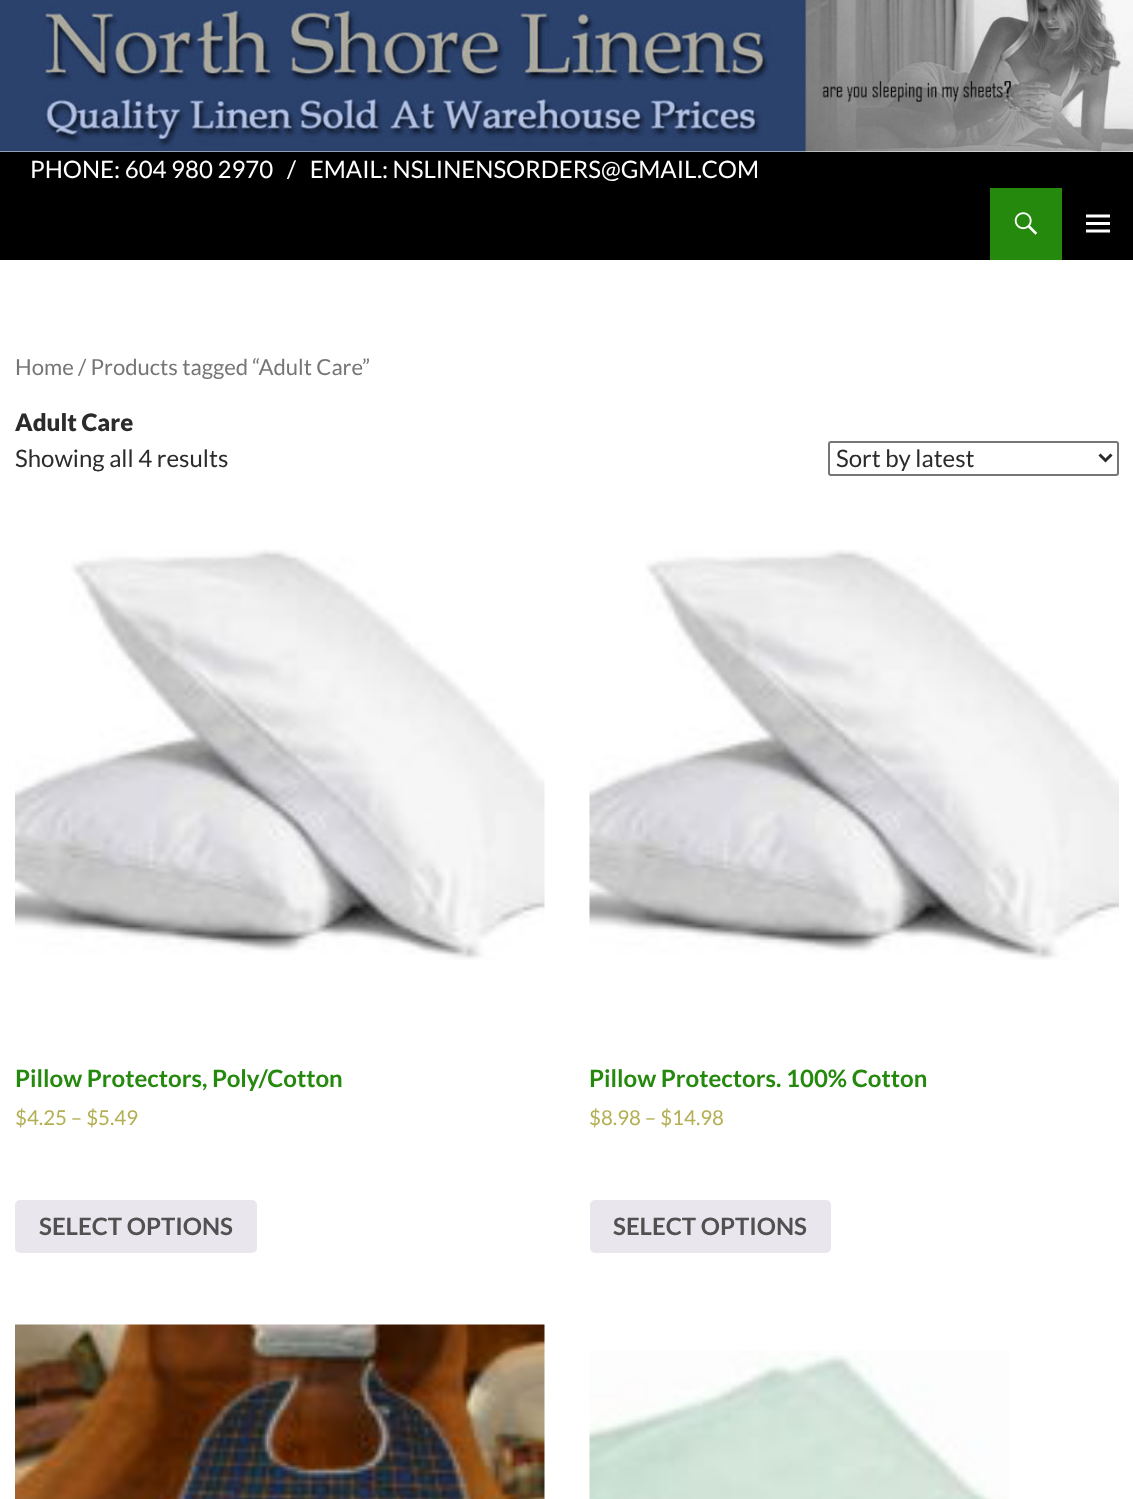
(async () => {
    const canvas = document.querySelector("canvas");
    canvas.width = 1133;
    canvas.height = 1499;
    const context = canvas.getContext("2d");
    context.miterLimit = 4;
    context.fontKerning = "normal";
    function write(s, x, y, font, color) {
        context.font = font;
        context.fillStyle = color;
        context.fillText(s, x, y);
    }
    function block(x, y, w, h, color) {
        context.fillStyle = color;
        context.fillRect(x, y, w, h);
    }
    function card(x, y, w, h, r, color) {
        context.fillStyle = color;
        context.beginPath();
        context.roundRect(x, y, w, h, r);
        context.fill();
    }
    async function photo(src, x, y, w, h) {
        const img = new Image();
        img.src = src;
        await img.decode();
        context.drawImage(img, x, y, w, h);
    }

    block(0, 0, 1133, 1499, "rgb(255, 255, 255)");
    await photo("media/1.png", 0, 0, 1133, 152);
    block(0, 152, 1133, 108, "rgb(0, 0, 0)");
    write("PHONE: 604 980 2970", 30, 178, "24px Lato", "rgb(255, 255, 255)");
    write("/   EMAIL: NSLINENSORDERS@GMAIL.COM", 287, 178, "24px Lato", "rgb(255, 255, 255)");
    block(990, 188, 72, 72, "rgb(36, 137, 13)");
    await photo("media/2.png", 1014, 212, 24, 23);
    await photo("media/3.png", 1086, 214, 24, 19);
    write("Home / Products tagged “Adult Care”", 15, 375, "22.1px Lato", "rgb(118, 118, 118)");
    write("Adult Care", 15, 431, "900 24px Lato", "rgb(43, 43, 43)");
    write("Showing all 4 results", 15, 467, "24px Lato", "rgb(43, 43, 43)");
    context.beginPath();
    context.roundRect(829, 442, 289, 33, 2);
    context.strokeStyle = "rgb(118, 118, 118)";
    context.lineWidth = 2;
    context.stroke();
    context.beginPath();
    context.moveTo(1099.5, 454.5);
    context.lineTo(1105.5, 460.5);
    context.lineTo(1111.5, 454.5);
    context.strokeStyle = "rgb(43, 43, 43)";
    context.lineWidth = 3;
    context.stroke();
    write("Sort by latest", 836, 467, "24px Lato", "rgb(43, 43, 43)");
    await photo("media/4.png", 15, 549, 530, 411);
    write("Pillow Protectors, Poly/Cotton", 15, 1087, "bold 24px Lato", "rgb(36, 137, 13)");
    write("$4.25 – $5.49", 15, 1125, "20.5px Lato", "rgb(179, 175, 84)");
    card(15, 1200, 242, 53, 5, "rgb(233, 230, 237)");
    write("SELECT OPTIONS", 39, 1235, "bold 24px Lato", "rgb(81, 81, 81)");
    await photo("media/5.png", 589, 549, 530, 411);
    write("Pillow Protectors. 100% Cotton", 589, 1087, "bold 24px Lato", "rgb(36, 137, 13)");
    write("$8.98 – $14.98", 589, 1125, "20.5px Lato", "rgb(179, 175, 84)");
    card(590, 1200, 241, 53, 5, "rgb(233, 230, 237)");
    write("SELECT OPTIONS", 613, 1235, "bold 24px Lato", "rgb(81, 81, 81)");
    await photo("media/6.png", 15, 1324, 530, 175);
    await photo("media/7.png", 589, 1350, 420, 149);
})();
